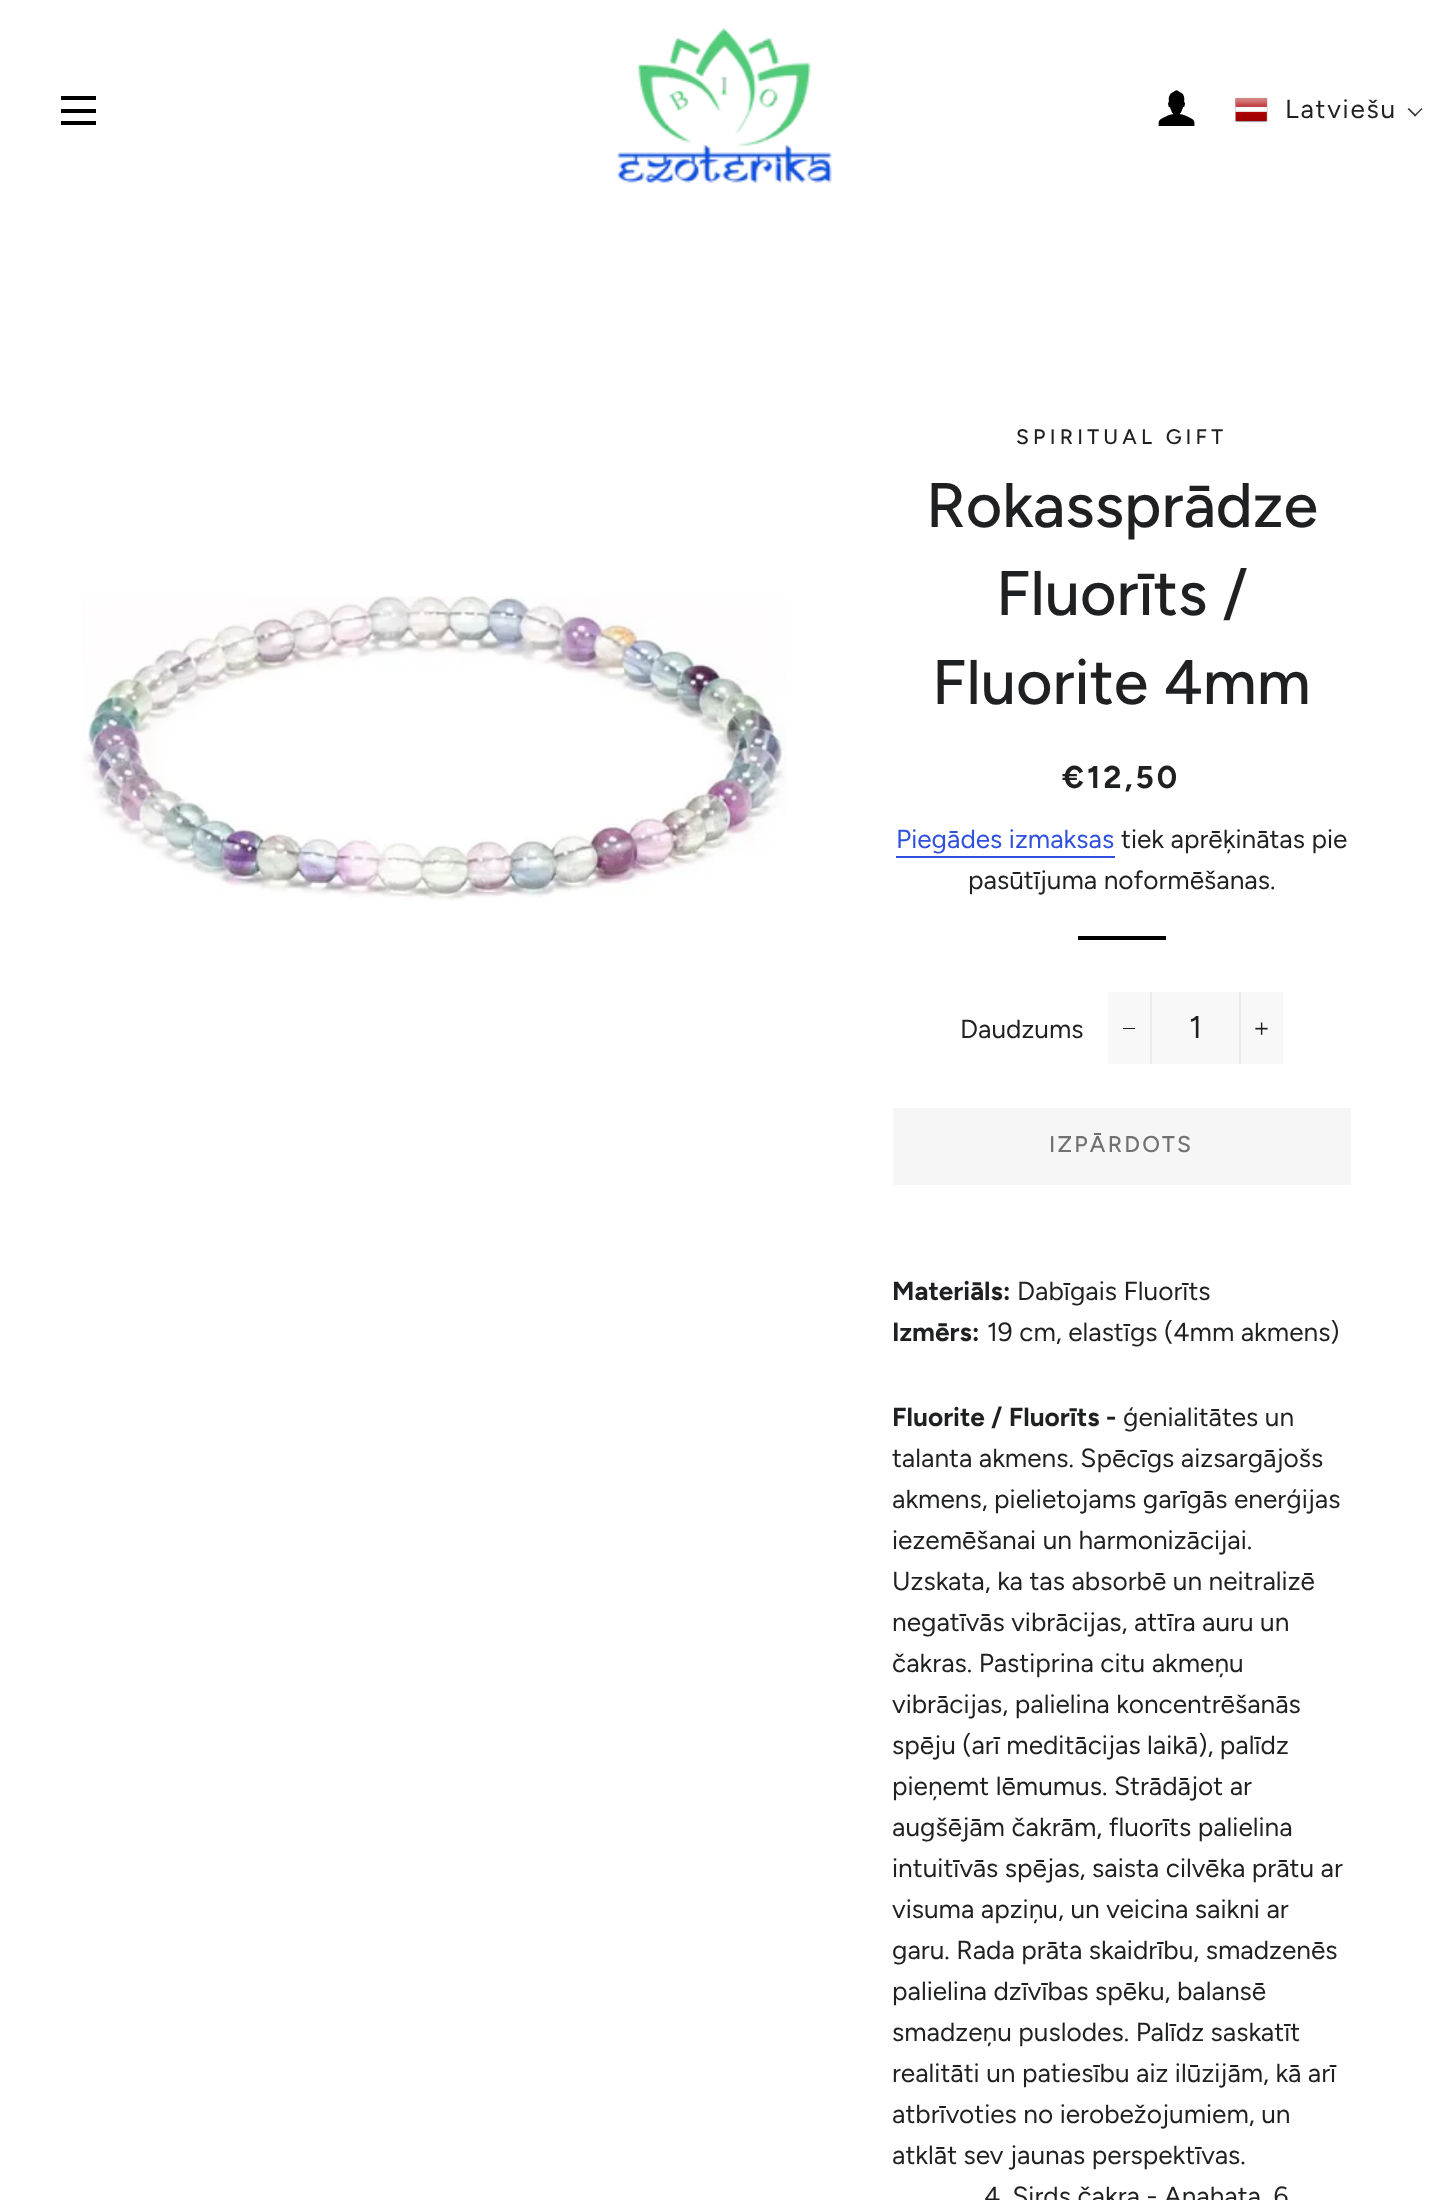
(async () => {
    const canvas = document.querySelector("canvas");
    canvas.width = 1447;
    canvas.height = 2200;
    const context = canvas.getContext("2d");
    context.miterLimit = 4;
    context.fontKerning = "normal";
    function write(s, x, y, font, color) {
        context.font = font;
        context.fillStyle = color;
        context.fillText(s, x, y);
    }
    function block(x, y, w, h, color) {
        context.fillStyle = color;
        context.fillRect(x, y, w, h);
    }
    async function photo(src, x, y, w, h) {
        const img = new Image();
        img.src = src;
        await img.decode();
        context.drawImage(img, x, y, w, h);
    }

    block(0, 0, 1447, 2200, "rgb(255, 255, 255)");
    block(61, 96, 35, 4, "rgb(0, 0, 0)");
    block(61, 109, 35, 4, "rgb(0, 0, 0)");
    block(61, 121, 35, 4, "rgb(0, 0, 0)");
    await photo("media/1.png", 617, 28, 215, 155);
    await photo("media/2.png", 1158, 90, 37, 36);
    await photo("media/3.png", 1235, 97, 33, 26);
    context.letterSpacing = "1.75px";
    write("Latviešu", 1285, 118, "26.25px Figtree", "rgb(31, 32, 33)");
    context.fillStyle = "rgb(58, 58, 58)";
    context.beginPath();
    context.moveTo(1421.5, 108);
    context.lineTo(1422.5, 109);
    context.lineTo(1415, 116.5);
    context.lineTo(1414, 115.5);
    context.closePath();
    context.fill();
    context.beginPath();
    context.moveTo(1409, 108);
    context.lineTo(1416.5, 115.5);
    context.lineTo(1415, 116.5);
    context.lineTo(1407.5, 109);
    context.closePath();
    context.fill();
    await photo("media/4.png", 82, 596, 705, 305);
    context.letterSpacing = "4.25px";
    write("SPIRITUAL GIFT", 1016, 444, "500 21px Figtree", "rgb(31, 32, 33)");
    context.letterSpacing = "0px";
    write("Rokassprādze", 926, 527, "500 63px Figtree", "rgb(31, 32, 33)");
    write("Fluorīts /", 996, 615, "500 63px Figtree", "rgb(31, 32, 33)");
    write("Fluorite 4mm", 932, 704, "500 63px Figtree", "rgb(31, 32, 33)");
    context.letterSpacing = "3px";
    write("€12,50", 1062, 788, "bold 31.5px Figtree", "rgb(31, 32, 33)");
    context.letterSpacing = "0px";
    write("Piegādes izmaksas", 896, 848, "26.25px Figtree", "rgb(48, 80, 222)");
    block(896, 856, 219, 2, "rgb(48, 80, 222)");
    write("tiek aprēķinātas pie", 1121, 848, "26.25px Figtree", "rgb(31, 32, 33)");
    write("pasūtījuma noformēšanas.", 968, 889, "26.25px Figtree", "rgb(31, 32, 33)");
    block(1078, 936, 88, 4, "rgb(0, 0, 0)");
    write("Daudzums", 960, 1038, "26.25px Figtree", "rgb(31, 32, 33)");
    block(1108, 992, 175, 72, "rgb(248, 248, 248)");
    block(1150, 992, 2, 72, "rgb(235, 235, 235)");
    block(1123, 1028, 12, 1, "rgb(28, 29, 29)");
    write("1", 1189, 1038, "31.5px Figtree", "rgb(31, 32, 33)");
    block(1239, 992, 2, 72, "rgb(235, 235, 235)");
    await photo("media/5.png", 1255, 1022, 13, 13);
    block(893, 1108, 458, 77, "rgb(246, 246, 246)");
    context.letterSpacing = "2.25px";
    write("IZPĀRDOTS", 1049, 1152, "500 22.75px Figtree", "rgb(113, 113, 113)");
    context.letterSpacing = "0px";
    write("Materiāls:", 892, 1300, "bold 26.25px Figtree", "rgb(31, 32, 33)");
    write("Dabīgais Fluorīts", 1017, 1300, "26.25px Figtree", "rgb(31, 32, 33)");
    write("Izmērs:", 892, 1341, "bold 26.25px Figtree", "rgb(31, 32, 33)");
    write("19 cm, elastīgs (4mm akmens)", 987, 1341, "26.25px Figtree", "rgb(31, 32, 33)");
    write("Fluorite / Fluorīts -", 892, 1426, "bold 26.25px Figtree", "rgb(31, 32, 33)");
    write("ģenialitātes un", 1123, 1426, "26.25px Figtree", "rgb(31, 32, 33)");
    write("talanta akmens. Spēcīgs aizsargājošs", 892, 1467, "26.25px Figtree", "rgb(31, 32, 33)");
    write("akmens, pielietojams garīgās enerģijas", 892, 1508, "26.25px Figtree", "rgb(31, 32, 33)");
    write("iezemēšanai un harmonizācijai.", 892, 1549, "26.25px Figtree", "rgb(31, 32, 33)");
    write("Uzskata, ka tas absorbē un neitralizē", 892, 1590, "26.25px Figtree", "rgb(31, 32, 33)");
    write("negatīvās vibrācijas, attīra auru un", 892, 1631, "26.25px Figtree", "rgb(31, 32, 33)");
    write("čakras. Pastiprina citu akmeņu", 892, 1672, "26.25px Figtree", "rgb(31, 32, 33)");
    write("vibrācijas, palielina koncentrēšanās", 892, 1713, "26.25px Figtree", "rgb(31, 32, 33)");
    write("spēju (arī meditācijas laikā), palīdz", 892, 1754, "26.25px Figtree", "rgb(31, 32, 33)");
    write("pieņemt lēmumus. Strādājot ar", 892, 1795, "26.25px Figtree", "rgb(31, 32, 33)");
    write("augšējām čakrām, fluorīts palielina", 892, 1836, "26.25px Figtree", "rgb(31, 32, 33)");
    write("intuitīvās spējas, saista cilvēka prātu ar", 892, 1877, "26.25px Figtree", "rgb(31, 32, 33)");
    write("visuma apziņu, un veicina saikni ar", 892, 1918, "26.25px Figtree", "rgb(31, 32, 33)");
    write("garu. Rada prāta skaidrību, smadzenēs", 892, 1959, "26.25px Figtree", "rgb(31, 32, 33)");
    write("palielina dzīvības spēku, balansē", 892, 2000, "26.25px Figtree", "rgb(31, 32, 33)");
    write("smadzeņu puslodes. Palīdz saskatīt", 892, 2041, "26.25px Figtree", "rgb(31, 32, 33)");
    write("realitāti un patiesību aiz ilūzijām, kā arī", 892, 2082, "26.25px Figtree", "rgb(31, 32, 33)");
    write("atbrīvoties no ierobežojumiem, un", 892, 2123, "26.25px Figtree", "rgb(31, 32, 33)");
    write("atklāt sev jaunas perspektīvas.", 892, 2164, "26.25px Figtree", "rgb(31, 32, 33)");
    write("4. Sirds čakra - Anahata, 6", 984, 2205, "26.25px Figtree", "rgb(31, 32, 33)");
})();
